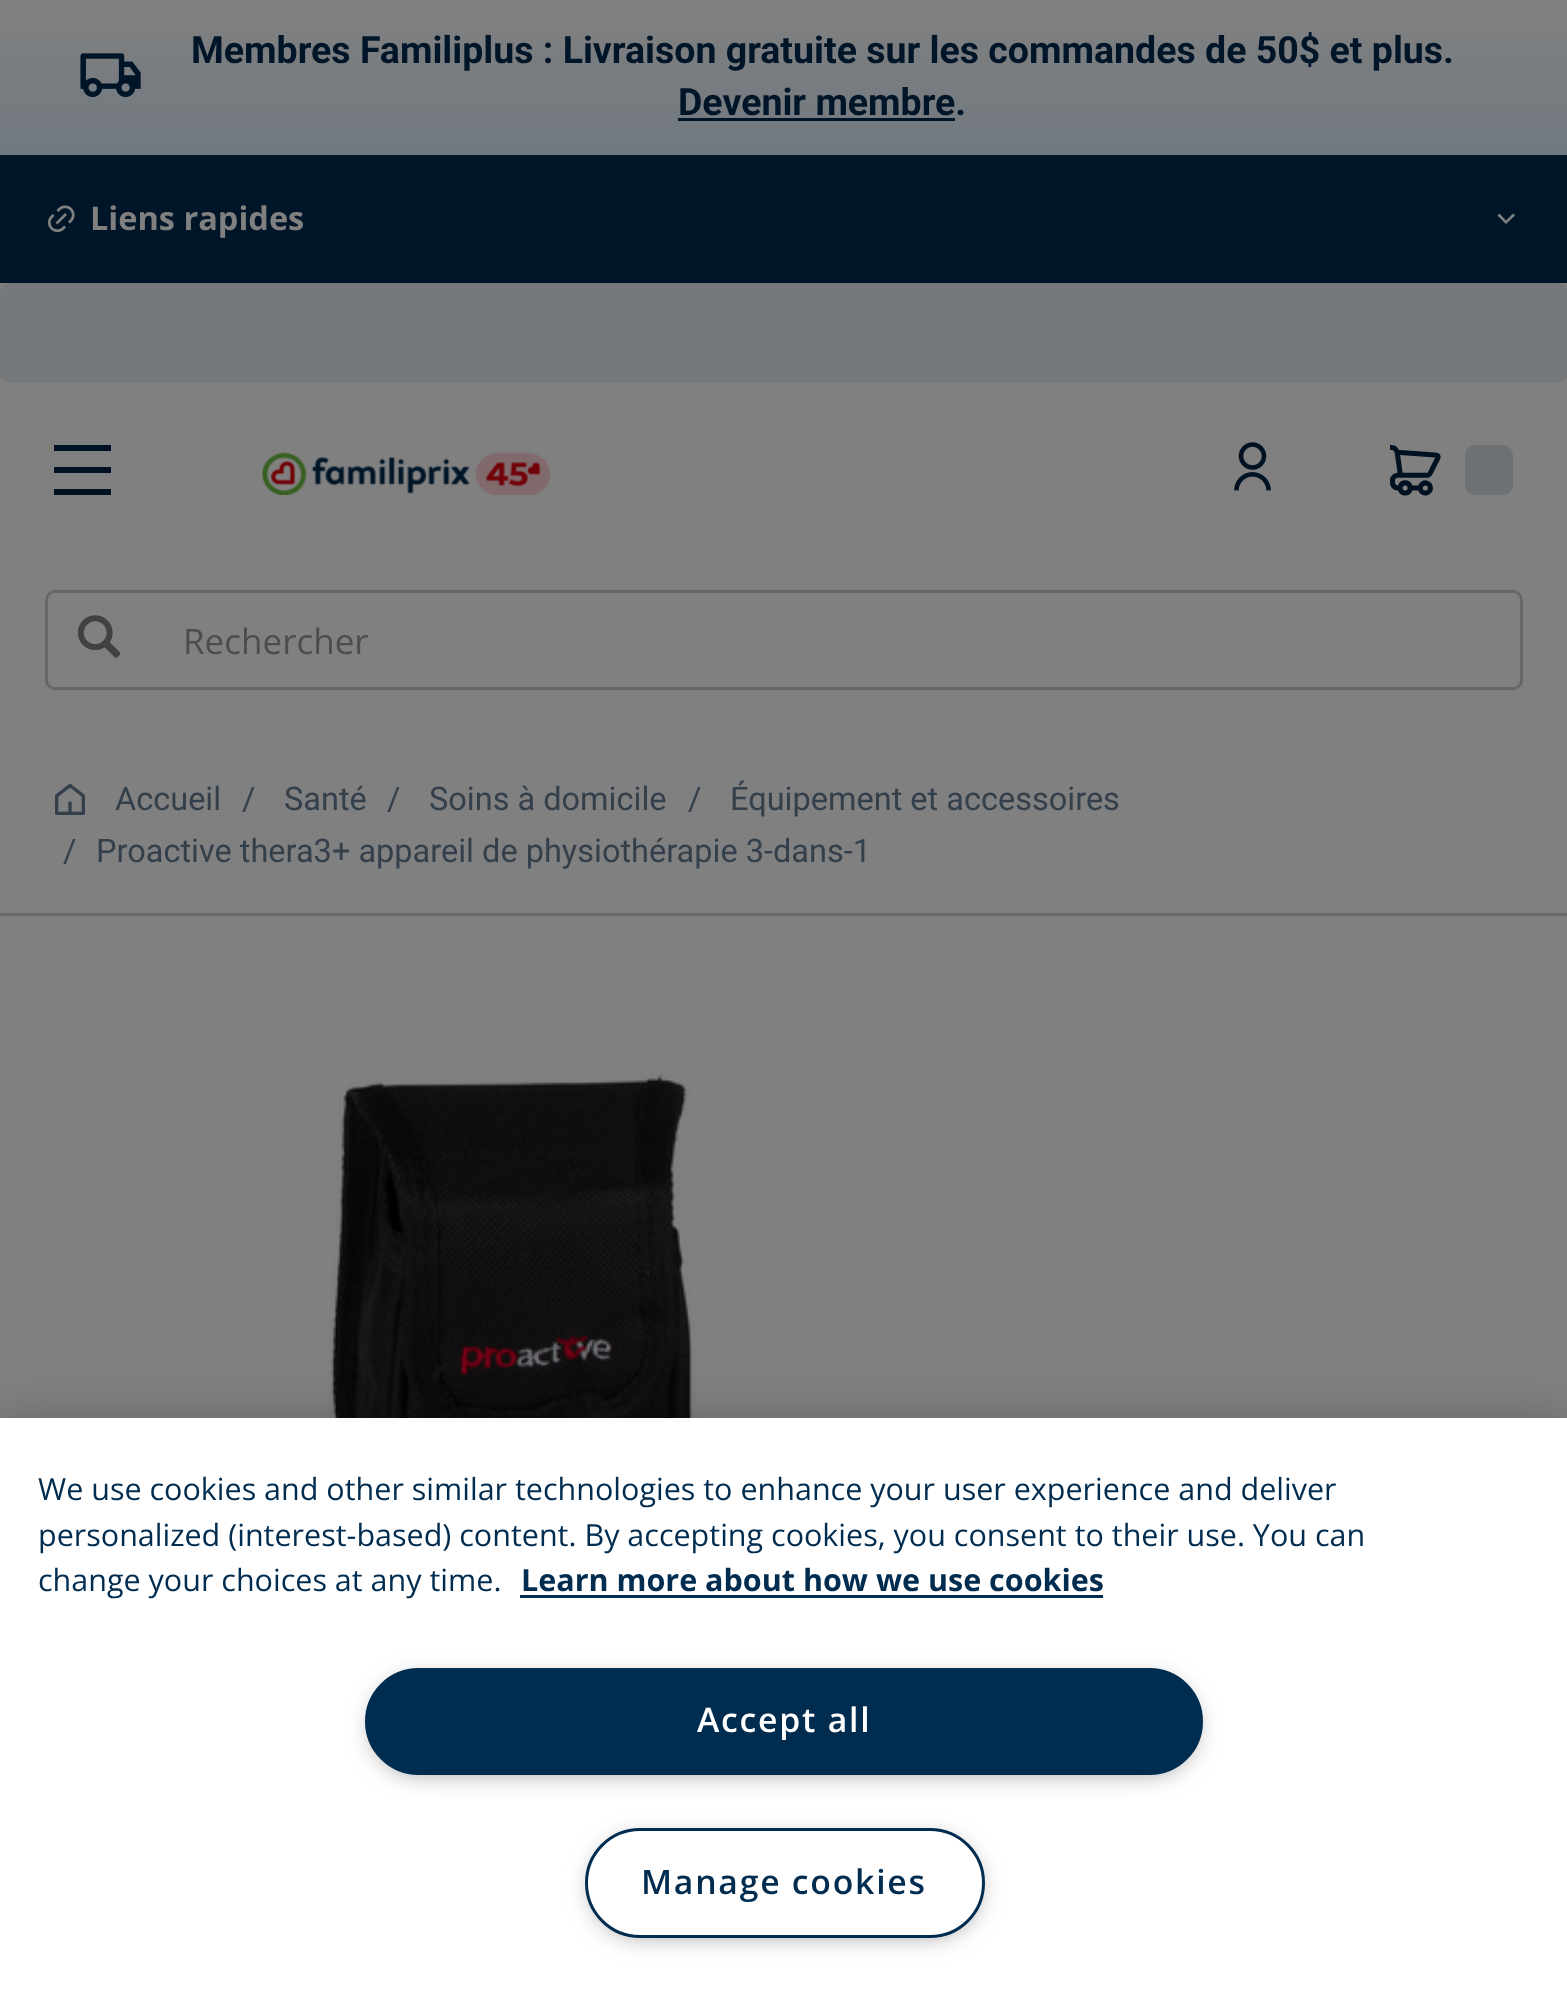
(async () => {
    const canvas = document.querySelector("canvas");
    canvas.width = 1567;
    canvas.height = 1992;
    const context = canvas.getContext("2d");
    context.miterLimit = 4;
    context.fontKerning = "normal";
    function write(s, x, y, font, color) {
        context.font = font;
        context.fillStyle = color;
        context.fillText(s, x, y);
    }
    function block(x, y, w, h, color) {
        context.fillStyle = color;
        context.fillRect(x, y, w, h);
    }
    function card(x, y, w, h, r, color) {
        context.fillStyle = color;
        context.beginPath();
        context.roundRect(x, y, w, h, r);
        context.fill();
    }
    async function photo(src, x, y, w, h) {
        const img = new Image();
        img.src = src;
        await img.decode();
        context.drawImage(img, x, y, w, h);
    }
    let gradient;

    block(0, 0, 1567, 1992, "rgb(128, 128, 128)");
    gradient = context.createLinearGradient(784, 155, 784, 0);
    gradient.addColorStop(0, "rgb(113, 121, 128)");
    gradient.addColorStop(1, "rgb(128, 128, 128)");
    context.fillStyle = gradient;
    context.fillRect(0, 26, 1567, 129);
    await photo("media/1.png", 80, 53, 61, 45);
    write("Membres Familiplus : Livraison gratuite sur les commandes de 50$ et plus.", 191, 63, "bold 37.5px Roboto", "rgb(0, 22, 40)");
    write("Devenir membre.", 678, 115, "bold 37.5px Roboto", "rgb(0, 22, 40)");
    block(678, 118, 277, 3, "rgb(0, 22, 40)");
    block(0, 155, 1567, 128, "rgb(0, 22, 40)");
    await photo("media/2.png", 47, 205, 28, 28);
    write("Liens rapides", 90, 230, "bold 32.5px Open Sans", "rgb(128, 128, 128)");
    context.beginPath();
    context.moveTo(1506, 220.5);
    context.lineTo(1513, 213.5);
    context.lineTo(1515, 215.5);
    context.lineTo(1506, 224);
    context.lineTo(1497.5, 215.5);
    context.lineTo(1499.5, 213.5);
    context.closePath();
    context.fill();
    card(0, 283, 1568, 100, 10, "rgb(118, 121, 124)");
    context.fillStyle = "rgb(0, 18, 33)";
    context.beginPath();
    context.moveTo(54, 445);
    context.lineTo(111, 445);
    context.lineTo(111, 451);
    context.lineTo(54, 451);
    context.closePath();
    context.moveTo(54, 467);
    context.lineTo(111, 467);
    context.lineTo(111, 473);
    context.lineTo(54, 473);
    context.closePath();
    context.moveTo(54, 489);
    context.lineTo(111, 489);
    context.lineTo(111, 495);
    context.lineTo(54, 495);
    context.closePath();
    context.fill();
    await photo("media/3.png", 262, 452, 288, 43);
    await photo("media/4.png", 1234, 442, 37, 49);
    await photo("media/5.png", 1390, 445, 51, 51);
    card(1465, 445, 48, 50, 10, "rgb(110, 113, 116)");
    context.beginPath();
    context.roundRect(46.5, 591.5, 1475, 97, 8.5);
    context.strokeStyle = "rgb(102, 102, 102)";
    context.lineWidth = 3;
    context.stroke();
    await photo("media/6.png", 77, 615, 44, 43);
    write("Rechercher", 183, 654, "35px Open Sans", "rgb(77, 77, 77)");
    block(0, 913, 1567, 3, "rgb(102, 107, 111)");
    await photo("media/7.png", 55, 783, 30, 32);
    write("Accueil", 115, 810, "32.5px Roboto", "rgb(51, 64, 76)");
    write("/", 242, 810, "32.5px Roboto", "rgb(51, 64, 76)");
    write("Santé", 284, 810, "32.5px Roboto", "rgb(51, 64, 76)");
    write("/", 387, 810, "32.5px Roboto", "rgb(51, 64, 76)");
    write("Soins à domicile", 429, 810, "32.5px Roboto", "rgb(51, 64, 76)");
    write("/", 688, 810, "32.5px Roboto", "rgb(51, 64, 76)");
    write("Équipement et accessoires", 730, 810, "32.5px Roboto", "rgb(51, 64, 76)");
    write("/", 63, 862, "32.5px Roboto", "rgb(51, 64, 76)");
    write("Proactive thera3+ appareil de physiothérapie 3-dans-1", 96, 862, "32.5px Roboto", "rgb(51, 64, 76)");
    await photo("media/8.png", 328, 1074, 899, 344);
    context.fillStyle = "rgba(0, 0, 0, 0.2)";
    context.filter = "blur(22.5px)";
    context.beginPath();
    context.rect(0, 1418, 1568, 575);
    context.fill();
    context.filter = "none";
    block(0, 1418, 1567, 574, "rgb(255, 255, 255)");
    write("We use cookies and other similar technologies to enhance your user experience and deliver", 38, 1500, "30.5px Open Sans", "rgb(0, 44, 80)");
    write("personalized (interest-based) content. By accepting cookies, you consent to their use. You can", 38, 1546, "30.5px Open Sans", "rgb(0, 44, 80)");
    write("change your choices at any time.", 38, 1591, "30.5px Open Sans", "rgb(0, 44, 80)");
    write("Learn more about how we use cookies", 521, 1591, "bold 30.5px Open Sans", "rgb(0, 44, 80)");
    block(520, 1595, 583, 3, "rgb(0, 44, 80)");
    context.fillStyle = "rgb(153, 153, 153)";
    context.filter = "blur(12.5px)";
    context.beginPath();
    context.roundRect(373, 1680, 822, 93, 46.5);
    context.fill();
    context.filter = "none";
    context.fillStyle = "rgb(0, 44, 80)";
    context.beginPath();
    context.roundRect(366.5, 1669.5, 835, 104, 52);
    context.fill();
    context.strokeStyle = "rgb(0, 44, 80)";
    context.stroke();
    context.letterSpacing = "1.75px";
    write("Accept all", 697, 1732, "600 33.75px Open Sans", "rgb(255, 255, 255)");
    context.fillStyle = "rgb(153, 153, 153)";
    context.filter = "blur(12.5px)";
    context.beginPath();
    context.roundRect(593, 1840, 385, 95, 47.5);
    context.fill();
    context.filter = "none";
    context.fillStyle = "rgb(255, 255, 255)";
    context.beginPath();
    context.roundRect(586.5, 1829.5, 397, 107, 53.5);
    context.fill();
    context.stroke();
    write("Manage cookies", 641, 1894, "600 33.75px Open Sans", "rgb(0, 44, 80)");
})();
